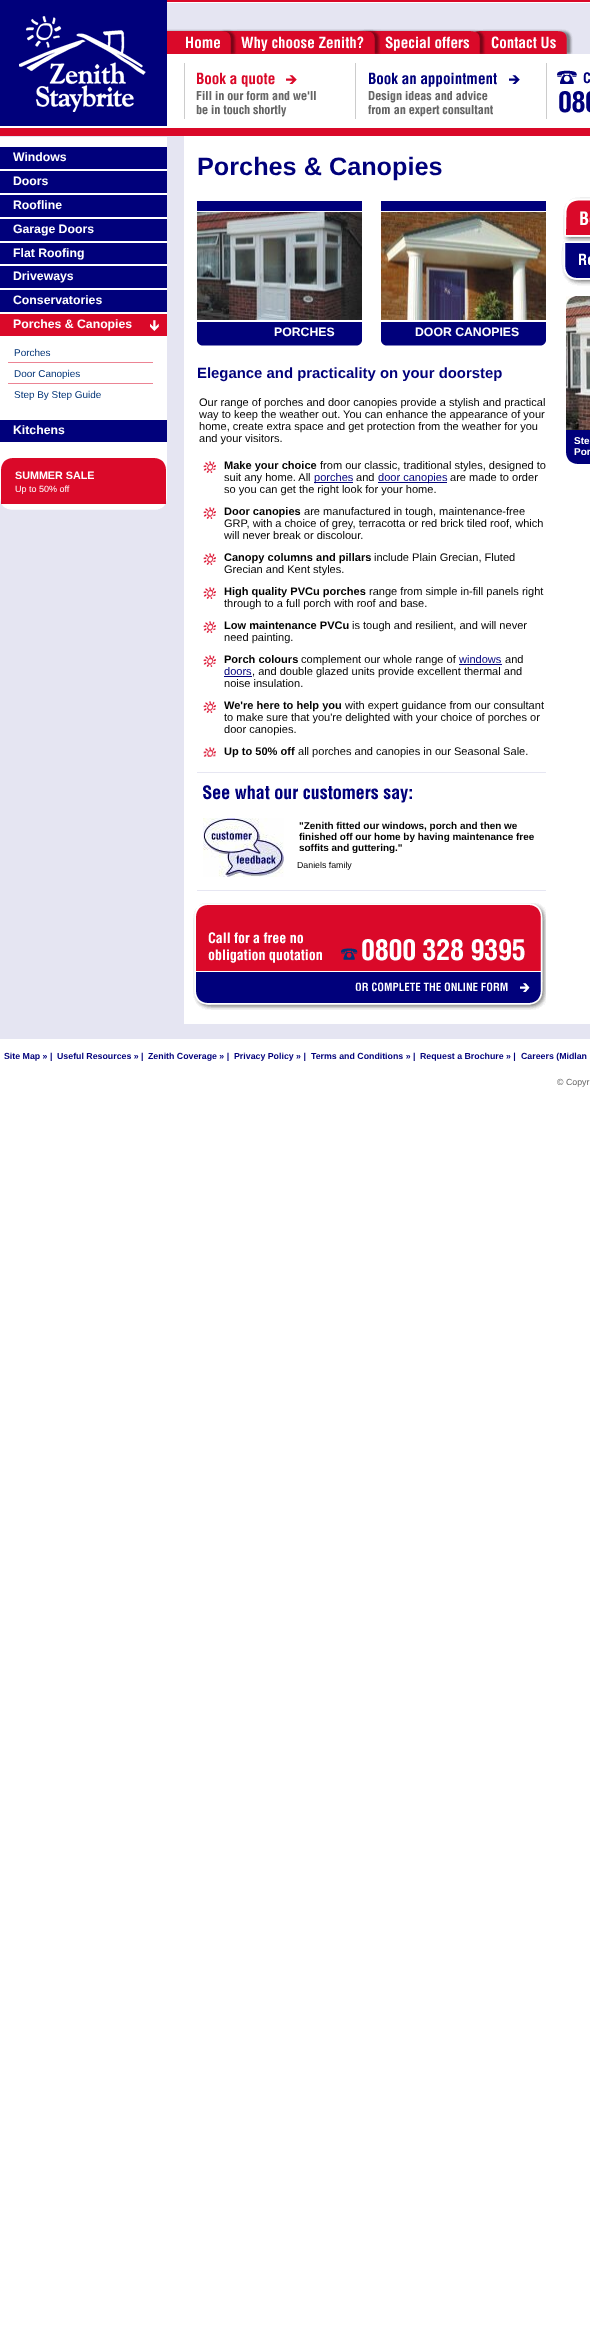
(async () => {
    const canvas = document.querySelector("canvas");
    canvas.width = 590;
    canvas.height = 2344;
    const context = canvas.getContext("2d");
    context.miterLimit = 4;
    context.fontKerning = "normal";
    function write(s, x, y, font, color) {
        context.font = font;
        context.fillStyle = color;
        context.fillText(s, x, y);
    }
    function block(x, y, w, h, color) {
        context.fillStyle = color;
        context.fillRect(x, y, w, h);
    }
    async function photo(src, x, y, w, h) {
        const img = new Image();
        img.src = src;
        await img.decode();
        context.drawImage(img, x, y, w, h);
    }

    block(0, 0, 590, 2344, "rgb(255, 255, 255)");
    block(0, 136, 590, 903, "rgb(229, 229, 242)");
    await photo("media/1.png", 0, 0, 590, 128);
    block(0, 128, 590, 8, "rgb(218, 9, 41)");
    await photo("media/2.png", 0, 0, 167, 126);
    await photo("media/3.png", 167, 29, 70, 25);
    await photo("media/4.png", 237, 29, 144, 25);
    await photo("media/5.png", 381, 29, 105, 25);
    await photo("media/6.png", 486, 29, 87, 25);
    block(184, 63, 1, 56, "rgb(204, 204, 204)");
    await photo("media/7.png", 196, 72, 120, 45);
    block(355, 63, 1, 56, "rgb(204, 204, 204)");
    await photo("media/8.png", 368, 72, 152, 45);
    block(546, 63, 1, 56, "rgb(204, 204, 204)");
    await photo("media/9.png", 557, 70, 33, 43);
    block(0, 137, 167, 362, "rgb(255, 255, 255)");
    await photo("media/10.png", 0, 499, 167, 11);
    block(0, 147, 167, 22, "rgb(0, 0, 123)");
    write("Windows", 13, 161, "bold 12.25px Liberation Sans", "rgb(255, 255, 255)");
    block(0, 171, 167, 22, "rgb(0, 0, 123)");
    write("Doors", 13, 185, "bold 12.25px Liberation Sans", "rgb(255, 255, 255)");
    block(0, 195, 167, 22, "rgb(0, 0, 123)");
    write("Roofline", 13, 209, "bold 12.25px Liberation Sans", "rgb(255, 255, 255)");
    block(0, 219, 167, 22, "rgb(0, 0, 123)");
    write("Garage Doors", 13, 233, "bold 12.25px Liberation Sans", "rgb(255, 255, 255)");
    block(0, 243, 167, 21, "rgb(0, 0, 123)");
    write("Flat Roofing", 13, 257, "bold 12.25px Liberation Sans", "rgb(255, 255, 255)");
    block(0, 266, 167, 22, "rgb(0, 0, 123)");
    write("Driveways", 13, 280, "bold 12.25px Liberation Sans", "rgb(255, 255, 255)");
    block(0, 290, 167, 22, "rgb(0, 0, 123)");
    write("Conservatories", 13, 304, "bold 12.25px Liberation Sans", "rgb(255, 255, 255)");
    block(0, 314, 167, 22, "rgb(218, 9, 41)");
    await photo("media/11.png", 150, 320, 9, 11);
    write("Porches & Canopies", 13, 328, "bold 12.25px Liberation Sans", "rgb(255, 255, 255)");
    block(8, 362, 145, 1, "rgb(236, 132, 148)");
    write("Porches", 14, 356, "9.95px Liberation Sans", "rgb(0, 51, 118)");
    block(8, 383, 145, 1, "rgb(236, 132, 148)");
    write("Door Canopies", 14, 377, "9.95px Liberation Sans", "rgb(0, 51, 118)");
    write("Step By Step Guide", 14, 398, "9.95px Liberation Sans", "rgb(0, 51, 118)");
    block(0, 420, 167, 22, "rgb(0, 0, 123)");
    write("Kitchens", 13, 434, "bold 12.25px Liberation Sans", "rgb(255, 255, 255)");
    block(1, 469, 165, 35, "rgb(218, 9, 41)");
    await photo("media/12.png", 1, 458, 165, 11);
    write("SUMMER SALE", 15, 479, "bold 10.75px Liberation Sans", "rgb(255, 255, 255)");
    write("Up to 50% off", 15, 492, "9px Liberation Sans", "rgb(255, 255, 255)");
    block(184, 136, 406, 888, "rgb(255, 255, 255)");
    write("Porches & Canopies", 197, 175, "bold 25.25px Liberation Sans", "rgb(0, 0, 123)");
    await photo("media/13.png", 197, 301, 349, 45);
    block(197, 201, 165, 100, "rgb(0, 0, 123)");
    block(197, 211, 165, 1, "rgb(255, 255, 255)");
    block(197, 320, 165, 2, "rgb(255, 255, 255)");
    await photo("media/14.png", 197, 212, 165, 108);
    write("PORCHES", 274, 336, "bold 12.25px Liberation Sans", "rgb(255, 255, 255)");
    block(381, 201, 165, 100, "rgb(0, 0, 123)");
    block(381, 211, 165, 1, "rgb(255, 255, 255)");
    block(381, 320, 165, 2, "rgb(255, 255, 255)");
    await photo("media/15.png", 381, 212, 165, 108);
    write("DOOR CANOPIES", 415, 336, "bold 12.25px Liberation Sans", "rgb(255, 255, 255)");
    write("Elegance and practicality on your doorstep", 197, 378, "bold 14.9px Liberation Sans", "rgb(0, 0, 123)");
    write("Our range of porches and door canopies provide a stylish and practical", 199, 406, "11.05px Liberation Sans", "rgb(0, 0, 0)");
    write("way to keep the weather out. You can enhance the appearance of your", 199, 418, "11.05px Liberation Sans", "rgb(0, 0, 0)");
    write("home, create extra space and get protection from the weather for you", 199, 430, "11.05px Liberation Sans", "rgb(0, 0, 0)");
    write("and your visitors.", 199, 442, "11.05px Liberation Sans", "rgb(0, 0, 0)");
    await photo("media/16.png", 203, 461, 13, 12);
    write("Make your choice", 224, 469, "bold 11.05px Liberation Sans", "rgb(0, 0, 0)");
    write("from our classic, traditional styles, designed to", 320, 469, "11.05px Liberation Sans", "rgb(0, 0, 0)");
    write("suit any home. All", 224, 481, "11.05px Liberation Sans", "rgb(0, 0, 0)");
    block(314, 482, 39, 1, "rgb(0, 0, 123)");
    write("porches", 314, 481, "11.05px Liberation Sans", "rgb(0, 0, 123)");
    write("and", 356, 481, "11.05px Liberation Sans", "rgb(0, 0, 0)");
    block(378, 482, 69, 1, "rgb(0, 0, 123)");
    write("door canopies", 378, 481, "11.05px Liberation Sans", "rgb(0, 0, 123)");
    write("are made to order", 450, 481, "11.05px Liberation Sans", "rgb(0, 0, 0)");
    write("so you can get the right look for your home.", 224, 493, "11.05px Liberation Sans", "rgb(0, 0, 0)");
    await photo("media/16.png", 203, 507, 13, 12);
    write("Door canopies", 224, 515, "bold 11.05px Liberation Sans", "rgb(0, 0, 0)");
    write("are manufactured in tough, maintenance-free", 304, 515, "11.05px Liberation Sans", "rgb(0, 0, 0)");
    write("GRP, with a choice of grey, terracotta or red brick tiled roof, which", 224, 527, "11.05px Liberation Sans", "rgb(0, 0, 0)");
    write("will never break or discolour.", 224, 539, "11.05px Liberation Sans", "rgb(0, 0, 0)");
    await photo("media/16.png", 203, 553, 13, 12);
    write("Canopy columns and pillars", 224, 561, "bold 11.05px Liberation Sans", "rgb(0, 0, 0)");
    write("include Plain Grecian, Fluted", 374, 561, "11.05px Liberation Sans", "rgb(0, 0, 0)");
    write("Grecian and Kent styles.", 224, 573, "11.05px Liberation Sans", "rgb(0, 0, 0)");
    await photo("media/16.png", 203, 587, 13, 12);
    write("High quality PVCu porches", 224, 595, "bold 11.05px Liberation Sans", "rgb(0, 0, 0)");
    write("range from simple in-fill panels right", 369, 595, "11.05px Liberation Sans", "rgb(0, 0, 0)");
    write("through to a full porch with roof and base.", 224, 607, "11.05px Liberation Sans", "rgb(0, 0, 0)");
    await photo("media/16.png", 203, 621, 13, 12);
    write("Low maintenance PVCu", 224, 629, "bold 11.05px Liberation Sans", "rgb(0, 0, 0)");
    write("is tough and resilient, and will never", 352, 629, "11.05px Liberation Sans", "rgb(0, 0, 0)");
    write("need painting.", 224, 641, "11.05px Liberation Sans", "rgb(0, 0, 0)");
    await photo("media/16.png", 203, 655, 13, 12);
    write("Porch colours", 224, 663, "bold 11.05px Liberation Sans", "rgb(0, 0, 0)");
    write("complement our whole range of", 301, 663, "11.05px Liberation Sans", "rgb(0, 0, 0)");
    write("windows", 459, 663, "11.05px Liberation Sans", "rgb(0, 0, 123)");
    block(459, 664, 43, 1, "rgb(0, 0, 123)");
    write("and", 505, 663, "11.05px Liberation Sans", "rgb(0, 0, 0)");
    write("doors", 224, 675, "11.05px Liberation Sans", "rgb(0, 0, 123)");
    block(224, 676, 28, 1, "rgb(0, 0, 123)");
    write(", and double glazed units provide excellent thermal and", 252, 675, "11.05px Liberation Sans", "rgb(0, 0, 0)");
    write("noise insulation.", 224, 687, "11.05px Liberation Sans", "rgb(0, 0, 0)");
    await photo("media/16.png", 203, 701, 13, 12);
    write("We're here to help you", 224, 709, "bold 11.05px Liberation Sans", "rgb(0, 0, 0)");
    write("with expert guidance from our consultant", 345, 709, "11.05px Liberation Sans", "rgb(0, 0, 0)");
    write("to make sure that you're delighted with your choice of porches or", 224, 721, "11.05px Liberation Sans", "rgb(0, 0, 0)");
    write("door canopies.", 224, 733, "11.05px Liberation Sans", "rgb(0, 0, 0)");
    await photo("media/17.png", 203, 747, 13, 10);
    write("Up to 50% off", 224, 755, "bold 11.05px Liberation Sans", "rgb(0, 0, 0)");
    write("all porches and canopies in our Seasonal Sale.", 298, 755, "11.05px Liberation Sans", "rgb(0, 0, 0)");
    block(197, 772, 349, 1, "rgb(230, 230, 242)");
    await photo("media/18.png", 203, 785, 209, 18);
    await photo("media/19.png", 203, 818, 81, 59);
    write("\"Zenith fitted our windows, porch and then we", 299, 829, "bold 9.95px Liberation Sans", "rgb(0, 0, 0)");
    write("finished off our home by having maintenance free", 299, 840, "bold 9.95px Liberation Sans", "rgb(0, 0, 0)");
    write("soffits and guttering.\"", 299, 851, "bold 9.95px Liberation Sans", "rgb(0, 0, 0)");
    write("Daniels family", 297, 868, "8.8px Liberation Sans", "rgb(0, 0, 0)");
    block(197, 890, 349, 1, "rgb(230, 230, 242)");
    await photo("media/20.png", 193, 903, 353, 107);
    await photo("media/21.png", 563, 197, 27, 44);
    await photo("media/22.png", 561, 241, 29, 45);
    await photo("media/23.png", 566, 296, 24, 134);
    block(566, 430, 24, 34, "rgb(0, 0, 123)");
    await photo("media/24.png", 566, 453, 11, 11);
    write("Ste", 574, 444, "bold 9.95px Liberation Sans", "rgb(255, 255, 255)");
    write("Por", 574, 455, "bold 9.95px Liberation Sans", "rgb(255, 255, 255)");
    write("Site Map » |", 4, 1059, "bold 8.8px Liberation Sans", "rgb(0, 0, 123)");
    write("Useful Resources » |", 57, 1059, "bold 8.8px Liberation Sans", "rgb(0, 0, 123)");
    write("Zenith Coverage » |", 148, 1059, "bold 8.8px Liberation Sans", "rgb(0, 0, 123)");
    write("Privacy Policy » |", 234, 1059, "bold 8.8px Liberation Sans", "rgb(0, 0, 123)");
    write("Terms and Conditions » |", 311, 1059, "bold 8.8px Liberation Sans", "rgb(0, 0, 123)");
    write("Request a Brochure » |", 420, 1059, "bold 8.8px Liberation Sans", "rgb(0, 0, 123)");
    write("Careers (Midlan", 521, 1059, "bold 8.8px Liberation Sans", "rgb(0, 0, 123)");
    write("© Copyr", 557, 1085, "8.8px Liberation Sans", "rgb(102, 102, 102)");
})();
